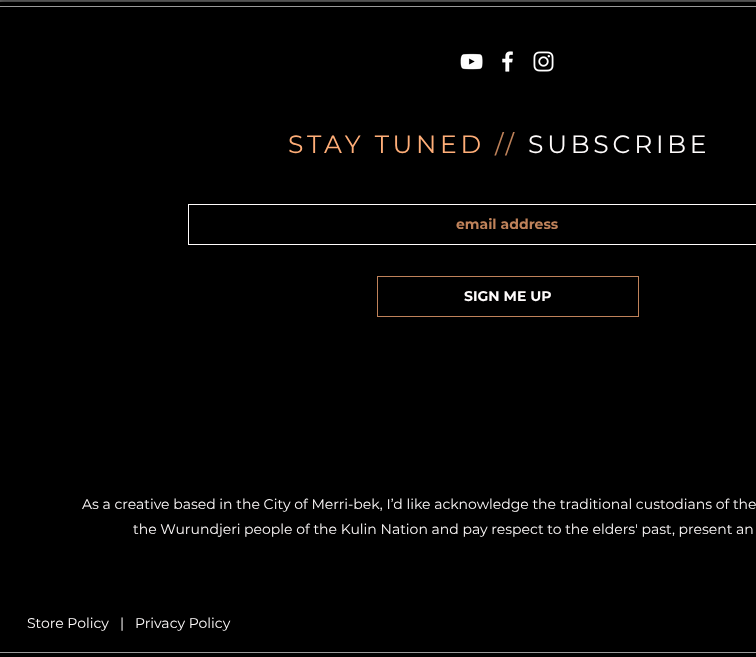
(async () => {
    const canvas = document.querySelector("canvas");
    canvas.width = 756;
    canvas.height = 657;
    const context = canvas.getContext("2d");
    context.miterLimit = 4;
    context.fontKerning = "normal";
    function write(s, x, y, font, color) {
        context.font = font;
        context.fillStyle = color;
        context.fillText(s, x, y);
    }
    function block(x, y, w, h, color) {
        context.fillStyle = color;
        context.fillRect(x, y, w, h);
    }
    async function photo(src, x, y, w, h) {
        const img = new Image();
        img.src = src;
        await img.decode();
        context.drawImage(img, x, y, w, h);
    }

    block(0, 0, 756, 657, "rgb(102, 102, 102)");
    context.fillStyle = "rgba(0, 0, 0, 0.7)";
    context.filter = "blur(2.5px)";
    context.beginPath();
    context.rect(0, 2, 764, 655);
    context.fill();
    context.filter = "none";
    block(0, 2, 756, 655, "rgb(0, 0, 0)");
    block(0, 6, 756, 1, "rgb(153, 153, 153)");
    block(0, 652, 756, 1, "rgb(153, 153, 153)");
    await photo("media/1.png", 460, 53, 23, 17);
    await photo("media/2.png", 502, 51, 11, 21);
    await photo("media/3.png", 533, 51, 21, 21);
    context.letterSpacing = "3.75px";
    write("STAY TUNED", 288, 153, "25px Montserrat", "rgb(255, 174, 120)");
    write("//", 495, 153, "25px Montserrat", "rgb(191, 130, 90)");
    write("SUBSCRIBE", 528, 153, "25px Montserrat", "rgb(255, 252, 252)");
    context.strokeStyle = "rgb(255, 252, 252)";
    context.strokeRect(188.5, 204.5, 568, 40);
    context.letterSpacing = "0px";
    write("email address", 456, 229, "bold 14px Montserrat", "rgb(191, 130, 90)");
    context.strokeStyle = "rgb(191, 130, 90)";
    context.strokeRect(377.5, 276.5, 261, 40);
    write("SIGN ME UP", 464, 301, "bold 14px Montserrat", "rgb(255, 252, 252)");
    write("As a creative based in the City of Merri-bek, I’d like acknowledge the traditional custodians of the", 82, 509, "14px Montserrat", "rgb(255, 252, 252)");
    write("the Wurundjeri people of the Kulin Nation and pay respect to the elders' past, present an", 133, 534, "14px Montserrat", "rgb(255, 252, 252)");
    write("Store Policy", 27, 628, "14px Montserrat", "rgb(255, 252, 252)");
    write("|", 120, 628, "14px Montserrat", "rgb(255, 252, 252)");
    write("Privacy Policy", 135, 628, "14px Montserrat", "rgb(255, 252, 252)");
})();
